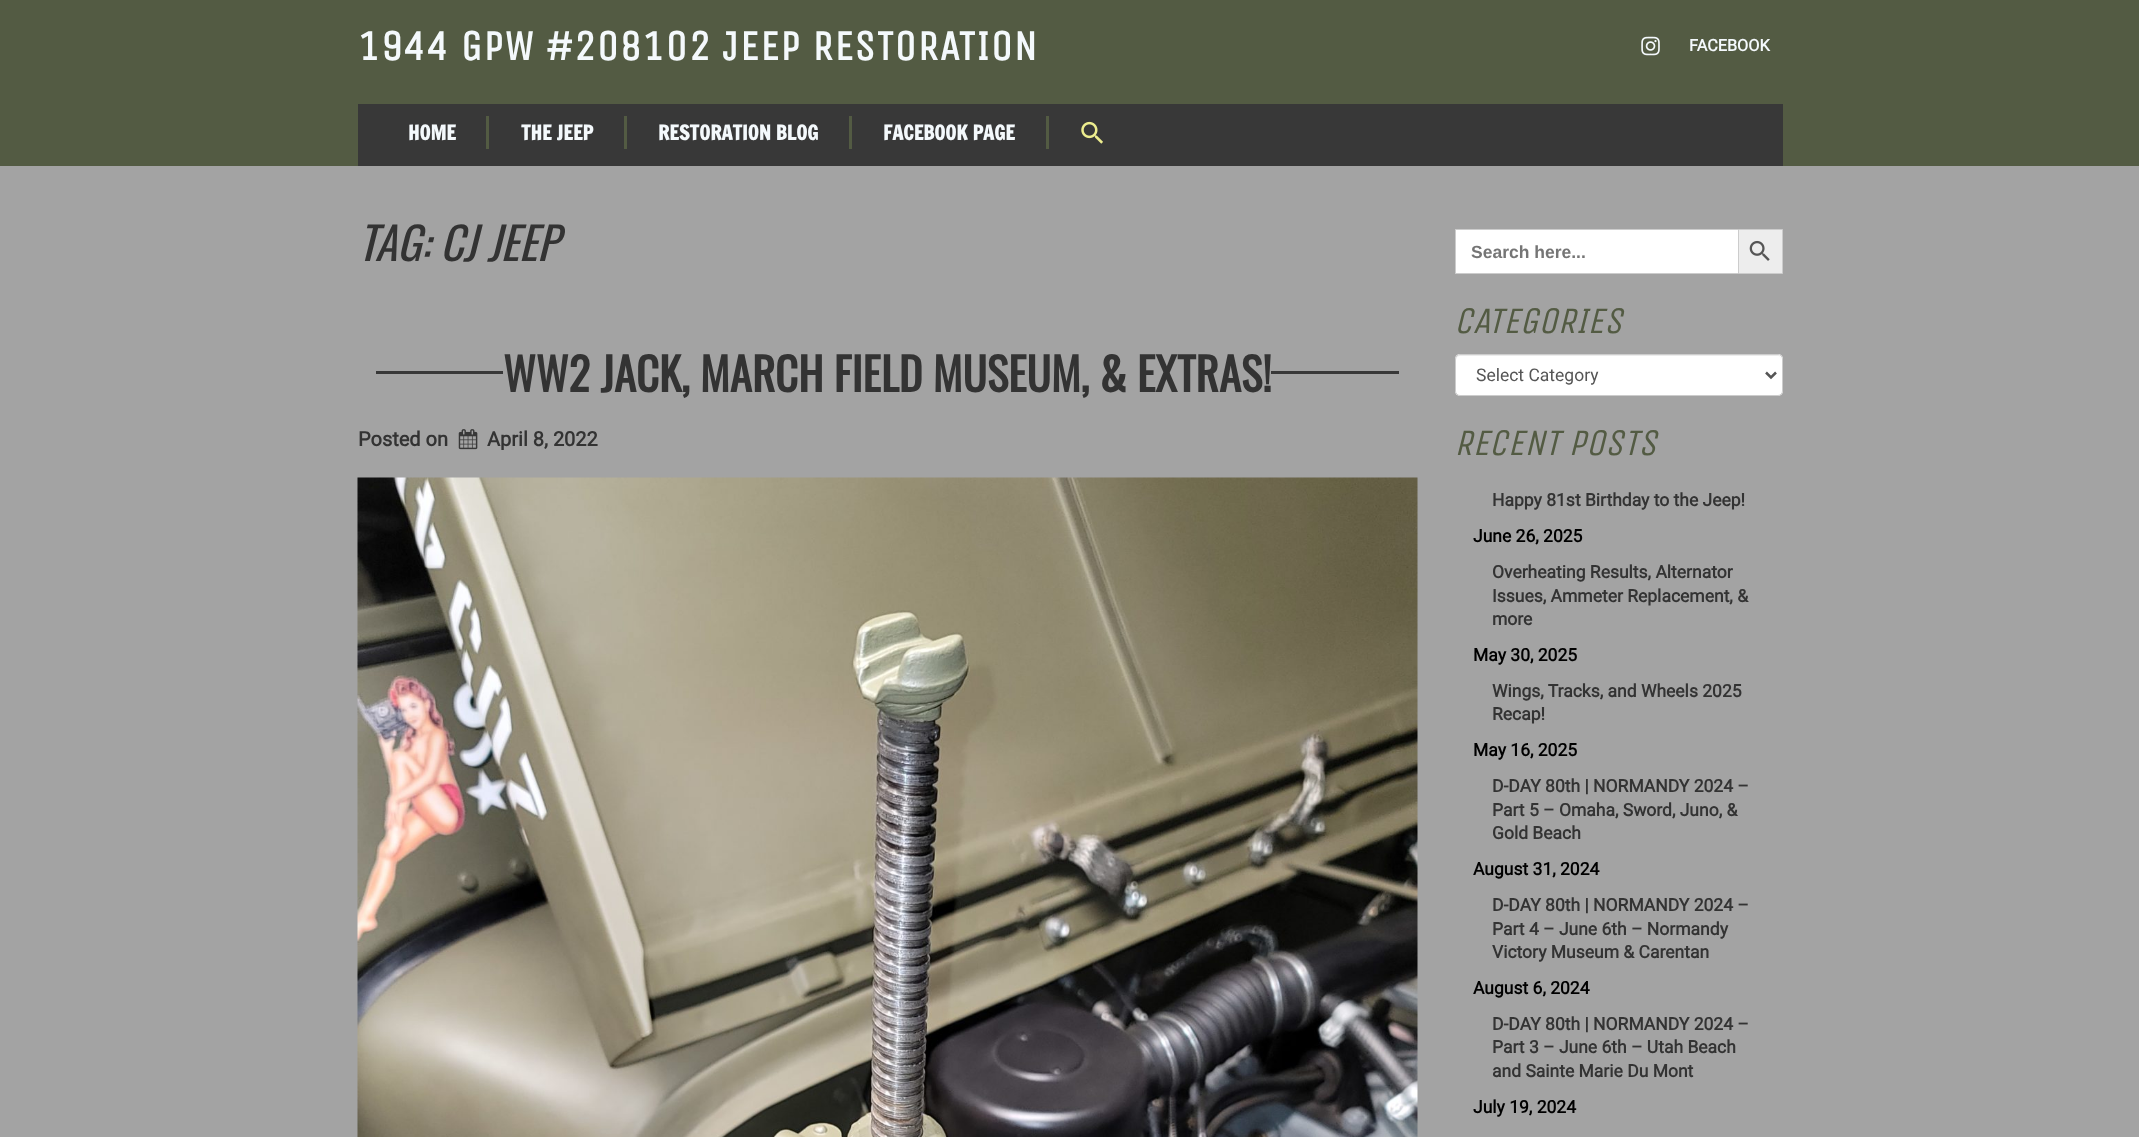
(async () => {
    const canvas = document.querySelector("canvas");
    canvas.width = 2139;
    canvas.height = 1137;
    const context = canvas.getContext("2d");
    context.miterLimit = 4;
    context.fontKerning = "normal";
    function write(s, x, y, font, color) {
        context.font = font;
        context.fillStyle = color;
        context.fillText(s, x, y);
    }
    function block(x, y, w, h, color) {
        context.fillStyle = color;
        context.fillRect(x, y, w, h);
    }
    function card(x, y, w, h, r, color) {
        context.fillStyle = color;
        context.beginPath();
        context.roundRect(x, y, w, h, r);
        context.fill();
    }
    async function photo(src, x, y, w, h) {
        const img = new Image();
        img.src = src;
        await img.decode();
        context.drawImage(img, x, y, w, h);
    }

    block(0, 0, 2139, 1137, "rgb(83, 91, 67)");
    context.letterSpacing = "1.25px";
    write("1944 GPW #208102 JEEP RESTORATION", 358, 60, "bold 42.5px Unica One", "rgb(244, 249, 252)");
    await photo("media/1.png", 1641, 36, 19, 20);
    context.letterSpacing = "0px";
    write("FACEBOOK", 1689, 51, "bold 16.25px Roboto", "rgb(244, 249, 252)");
    block(358, 104, 1425, 62, "rgb(56, 56, 56)");
    block(486, 116, 3, 33, "rgb(83, 91, 67)");
    write("HOME", 408, 140, "bold 20px Francois One", "rgb(244, 249, 252)");
    block(624, 116, 3, 33, "rgb(83, 91, 67)");
    write("THE JEEP", 521, 140, "bold 20px Francois One", "rgb(244, 249, 252)");
    block(849, 116, 3, 33, "rgb(83, 91, 67)");
    write("RESTORATION BLOG", 658, 140, "bold 20px Francois One", "rgb(244, 249, 252)");
    block(1046, 116, 3, 33, "rgb(83, 91, 67)");
    write("FACEBOOK PAGE", 883, 140, "bold 20px Francois One", "rgb(244, 249, 252)");
    await photo("media/2.png", 1081, 121, 22, 23);
    block(0, 166, 2139, 971, "rgb(163, 163, 163)");
    write("TAG: CJ JEEP", 358, 261, "italic 45px Oswald", "rgb(51, 51, 51)");
    block(376, 371, 1023, 3, "rgb(56, 56, 56)");
    block(503, 371, 768, 3, "rgb(163, 163, 163)");
    write("WW2 JACK, MARCH FIELD MUSEUM, & EXTRAS!", 503, 392, "bold 45px Oswald", "rgb(51, 51, 51)");
    write("Posted on", 358, 446, "bold 20px Roboto", "rgb(51, 51, 51)");
    await photo("media/3.png", 458, 429, 20, 21);
    write("April 8, 2022", 487, 446, "bold 20px Roboto", "rgb(51, 51, 51)");
    await photo("media/4.png", 357, 477, 1061, 660);
    block(1456, 230, 282, 43, "rgb(255, 255, 255)");
    block(1455, 229, 283, 1, "rgb(204, 204, 204)");
    block(1455, 273, 283, 1, "rgb(204, 204, 204)");
    block(1455, 229, 1, 45, "rgb(204, 204, 204)");
    write("Search here...", 1471, 258, "bold 17.5px Liberation Sans", "rgb(117, 117, 117)");
    context.fillStyle = "rgb(237, 237, 237)";
    context.beginPath();
    context.rect(1738.5, 229.5, 44, 44);
    context.fill();
    context.strokeStyle = "rgb(204, 204, 204)";
    context.stroke();
    await photo("media/5.png", 1749, 240, 21, 21);
    write("CATEGORIES", 1454, 333, "italic 37.5px Unica One", "rgb(83, 91, 67)");
    card(1455, 354, 328, 42, 5, "rgb(255, 255, 255)");
    context.fillStyle = "rgb(236, 236, 236)";
    context.beginPath();
    context.moveTo(1460, 356);
    context.lineTo(1778, 356);
    context.bezierCurveTo(1780, 356, 1781, 358, 1781, 360);
    context.lineTo(1781, 359);
    context.bezierCurveTo(1781, 357, 1779, 355, 1777, 355);
    context.lineTo(1460, 355);
    context.bezierCurveTo(1458, 355, 1456, 357, 1456, 359);
    context.lineTo(1456, 360);
    context.bezierCurveTo(1456, 358, 1458, 356, 1460, 356);
    context.closePath();
    context.fill();
    context.beginPath();
    context.roundRect(1455.5, 354.5, 327, 41, 4.5);
    context.stroke();
    context.beginPath();
    context.moveTo(1766, 372.5);
    context.lineTo(1771, 377.5);
    context.lineTo(1776, 372.5);
    context.strokeStyle = "rgb(85, 85, 85)";
    context.lineWidth = 2.5;
    context.stroke();
    write("Select Category", 1476, 381, "17.5px Roboto", "rgb(85, 85, 85)");
    write("RECENT POSTS", 1454, 455, "italic 37.5px Unica One", "rgb(83, 91, 67)");
    write("Happy 81st Birthday to the Jeep!", 1492, 506, "bold 17.5px Roboto", "rgb(51, 51, 51)");
    write("June 26, 2025", 1473, 542, "bold 17.5px Roboto", "rgb(0, 0, 0)");
    write("Overheating Results, Alternator", 1492, 578, "bold 17.5px Roboto", "rgb(51, 51, 51)");
    write("Issues, Ammeter Replacement, &", 1492, 602, "bold 17.5px Roboto", "rgb(51, 51, 51)");
    write("more", 1492, 625, "bold 17.5px Roboto", "rgb(51, 51, 51)");
    write("May 30, 2025", 1473, 661, "bold 17.5px Roboto", "rgb(0, 0, 0)");
    write("Wings, Tracks, and Wheels 2025", 1492, 697, "bold 17.5px Roboto", "rgb(51, 51, 51)");
    write("Recap!", 1492, 720, "bold 17.5px Roboto", "rgb(51, 51, 51)");
    write("May 16, 2025", 1473, 756, "bold 17.5px Roboto", "rgb(0, 0, 0)");
    write("D-DAY 80th | NORMANDY 2024 –", 1492, 792, "bold 17.5px Roboto", "rgb(51, 51, 51)");
    write("Part 5 – Omaha, Sword, Juno, &", 1492, 816, "bold 17.5px Roboto", "rgb(51, 51, 51)");
    write("Gold Beach", 1492, 839, "bold 17.5px Roboto", "rgb(51, 51, 51)");
    write("August 31, 2024", 1473, 875, "bold 17.5px Roboto", "rgb(0, 0, 0)");
    write("D-DAY 80th | NORMANDY 2024 –", 1492, 911, "bold 17.5px Roboto", "rgb(51, 51, 51)");
    write("Part 4 – June 6th – Normandy", 1492, 935, "bold 17.5px Roboto", "rgb(51, 51, 51)");
    write("Victory Museum & Carentan", 1492, 958, "bold 17.5px Roboto", "rgb(51, 51, 51)");
    write("August 6, 2024", 1473, 994, "bold 17.5px Roboto", "rgb(0, 0, 0)");
    write("D-DAY 80th | NORMANDY 2024 –", 1492, 1030, "bold 17.5px Roboto", "rgb(51, 51, 51)");
    write("Part 3 – June 6th – Utah Beach", 1492, 1053, "bold 17.5px Roboto", "rgb(51, 51, 51)");
    write("and Sainte Marie Du Mont", 1492, 1077, "bold 17.5px Roboto", "rgb(51, 51, 51)");
    write("July 19, 2024", 1473, 1113, "bold 17.5px Roboto", "rgb(0, 0, 0)");
})();
